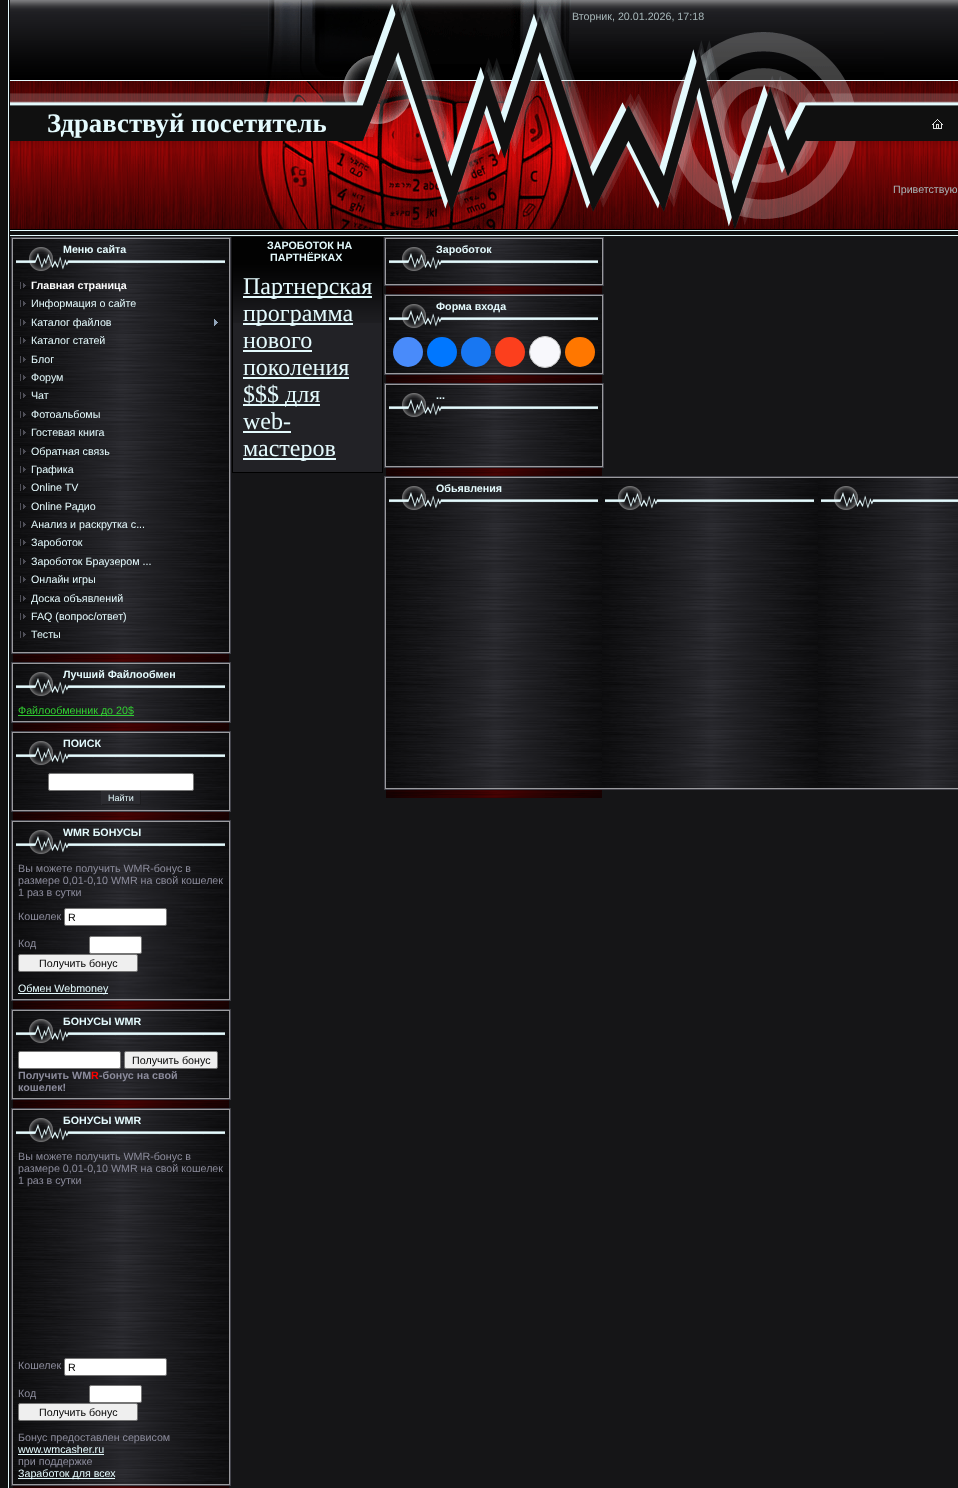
(async () => {
    const canvas = document.querySelector("canvas");
    canvas.width = 958;
    canvas.height = 1488;
    const context = canvas.getContext("2d");
    context.miterLimit = 4;
    context.fontKerning = "normal";
    function write(s, x, y, font, color) {
        context.font = font;
        context.fillStyle = color;
        context.fillText(s, x, y);
    }
    function block(x, y, w, h, color) {
        context.fillStyle = color;
        context.fillRect(x, y, w, h);
    }
    async function photo(src, x, y, w, h) {
        const img = new Image();
        img.src = src;
        await img.decode();
        context.drawImage(img, x, y, w, h);
    }

    block(0, 0, 958, 1488, "rgb(21, 21, 23)");
    await photo("media/1.png", 0, 0, 10, 1488);
    await photo("media/2.png", 10, 0, 948, 236);
    await photo("media/3.png", 241, 0, 121, 103);
    await photo("media/4.png", 362, 0, 160, 229);
    await photo("media/5.png", 522, 0, 362, 106);
    write("Вторник, 20.01.2026, 17:18", 572, 20, "10.7px Liberation Sans", "rgb(167, 183, 185)");
    block(10, 140, 352, 1, "rgb(16, 16, 16)");
    write("Здравствуй посетитель", 47, 132, "bold 26.75px Liberation Serif", "rgb(228, 250, 253)");
    await photo("media/6.png", 522, 106, 285, 35);
    block(807, 140, 151, 1, "rgb(16, 16, 16)");
    await photo("media/7.png", 932, 119, 11, 10);
    await photo("media/8.png", 241, 141, 121, 88);
    await photo("media/9.png", 522, 141, 285, 88);
    await photo("media/10.png", 807, 141, 77, 88);
    write("Приветствую", 893, 193, "10.7px Liberation Sans", "rgb(167, 183, 185)");
    context.fillStyle = "rgb(154, 154, 158)";
    context.beginPath();
    context.rect(11.5, 237.5, 219, 416);
    context.fill();
    context.strokeStyle = "rgb(67, 67, 75)";
    context.stroke();
    await photo("media/11.png", 13, 239, 216, 35);
    write("Меню сайта", 63, 253, "bold 10.7px Liberation Sans", "rgb(228, 250, 253)");
    await photo("media/12.png", 13, 274, 216, 378);
    await photo("media/13.png", 20, 282, 6, 7);
    write("Главная страница", 31, 289, "bold 10.7px Liberation Sans", "rgb(255, 255, 255)");
    await photo("media/14.png", 20, 300, 6, 7);
    write("Информация о сайте", 31, 307, "10.7px Liberation Sans", "rgb(228, 250, 253)");
    await photo("media/15.png", 20, 319, 6, 7);
    write("Каталог файлов", 31, 326, "10.7px Liberation Sans", "rgb(228, 250, 253)");
    await photo("media/16.png", 214, 319, 4, 7);
    await photo("media/17.png", 20, 337, 6, 7);
    write("Каталог статей", 31, 344, "10.7px Liberation Sans", "rgb(228, 250, 253)");
    await photo("media/18.png", 20, 356, 6, 7);
    write("Блог", 31, 363, "10.7px Liberation Sans", "rgb(228, 250, 253)");
    await photo("media/19.png", 20, 374, 6, 7);
    write("Форум", 31, 381, "10.7px Liberation Sans", "rgb(228, 250, 253)");
    await photo("media/20.png", 20, 392, 6, 7);
    write("Чат", 31, 399, "10.7px Liberation Sans", "rgb(228, 250, 253)");
    await photo("media/21.png", 20, 411, 6, 7);
    write("Фотоальбомы", 31, 418, "10.7px Liberation Sans", "rgb(228, 250, 253)");
    await photo("media/22.png", 20, 429, 6, 7);
    write("Гостевая книга", 31, 436, "10.7px Liberation Sans", "rgb(228, 250, 253)");
    await photo("media/23.png", 20, 448, 6, 7);
    write("Обратная связь", 31, 455, "10.7px Liberation Sans", "rgb(228, 250, 253)");
    await photo("media/24.png", 20, 466, 6, 7);
    write("Графика", 31, 473, "10.7px Liberation Sans", "rgb(228, 250, 253)");
    await photo("media/25.png", 20, 484, 6, 7);
    write("Online TV", 31, 491, "10.7px Liberation Sans", "rgb(228, 250, 253)");
    await photo("media/26.png", 20, 503, 6, 7);
    write("Online Радио", 31, 510, "10.7px Liberation Sans", "rgb(228, 250, 253)");
    await photo("media/27.png", 20, 521, 6, 7);
    write("Анализ и раскрутка с...", 31, 528, "10.7px Liberation Sans", "rgb(228, 250, 253)");
    await photo("media/13.png", 20, 539, 6, 7);
    write("Зароботок", 31, 546, "10.7px Liberation Sans", "rgb(228, 250, 253)");
    await photo("media/28.png", 20, 558, 6, 7);
    write("Зароботок Браузером ...", 31, 565, "10.7px Liberation Sans", "rgb(228, 250, 253)");
    await photo("media/15.png", 20, 576, 6, 7);
    write("Онлайн игры", 31, 583, "10.7px Liberation Sans", "rgb(228, 250, 253)");
    await photo("media/29.png", 20, 595, 6, 7);
    write("Доска объявлений", 31, 602, "10.7px Liberation Sans", "rgb(228, 250, 253)");
    await photo("media/30.png", 20, 613, 6, 7);
    write("FAQ (вопрос/ответ)", 31, 620, "10.7px Liberation Sans", "rgb(228, 250, 253)");
    await photo("media/31.png", 20, 631, 6, 7);
    write("Тесты", 31, 638, "10.7px Liberation Sans", "rgb(228, 250, 253)");
    await photo("media/32.png", 13, 654, 216, 8);
    context.fillStyle = "rgb(154, 154, 158)";
    context.beginPath();
    context.rect(11.5, 662.5, 219, 60);
    context.fill();
    context.stroke();
    await photo("media/11.png", 13, 664, 216, 35);
    write("Лучший Файлообмен", 63, 678, "bold 10.7px Liberation Sans", "rgb(228, 250, 253)");
    await photo("media/33.png", 13, 699, 216, 22);
    block(18, 715, 116, 1, "rgb(50, 205, 50)");
    write("Файлообменник до 20$", 18, 714, "10.7px Liberation Sans", "rgb(50, 205, 50)");
    await photo("media/32.png", 13, 723, 216, 8);
    context.fillStyle = "rgb(154, 154, 158)";
    context.beginPath();
    context.rect(11.5, 731.5, 219, 80);
    context.fill();
    context.stroke();
    await photo("media/11.png", 13, 733, 216, 35);
    write("ПОИСК", 63, 747, "bold 10.7px Liberation Sans", "rgb(228, 250, 253)");
    await photo("media/34.png", 13, 768, 216, 42);
    context.fillStyle = "rgb(255, 255, 255)";
    context.beginPath();
    context.roundRect(48.5, 773.5, 145, 17, 1.5);
    context.fill();
    context.strokeStyle = "rgb(118, 118, 118)";
    context.stroke();
    block(102, 791, 38, 13, "rgb(43, 43, 48)");
    block(140, 791, 1, 14, "rgb(29, 29, 32)");
    block(101, 804, 40, 1, "rgb(29, 29, 32)");
    block(101, 791, 1, 14, "rgb(43, 43, 48)");
    write("Найти", 108, 801, "9px Liberation Sans", "rgb(228, 250, 253)");
    await photo("media/32.png", 13, 812, 216, 8);
    context.fillStyle = "rgb(154, 154, 158)";
    context.beginPath();
    context.rect(11.5, 820.5, 219, 180);
    context.fill();
    context.strokeStyle = "rgb(67, 67, 75)";
    context.stroke();
    await photo("media/11.png", 13, 822, 216, 35);
    write("WMR БОНУСЫ", 63, 836, "bold 10.7px Liberation Sans", "rgb(228, 250, 253)");
    await photo("media/35.png", 13, 857, 216, 142);
    write("Вы можете получить WMR-бонус в", 18, 872, "10.7px Liberation Sans", "rgb(140, 140, 156)");
    write("размере 0,01-0,10 WMR на свой кошелек", 18, 884, "10.7px Liberation Sans", "rgb(140, 140, 156)");
    write("1 раз в сутки", 18, 896, "10.7px Liberation Sans", "rgb(140, 140, 156)");
    write("Кошелек", 18, 920, "10.7px Liberation Sans", "rgb(140, 140, 156)");
    context.fillStyle = "rgb(255, 255, 255)";
    context.beginPath();
    context.roundRect(64.5, 908.5, 102, 17, 1.5);
    context.fill();
    context.strokeStyle = "rgb(118, 118, 118)";
    context.stroke();
    write("R", 68, 921, "10.7px Liberation Sans", "rgb(0, 0, 0)");
    write("Код", 18, 947, "10.7px Liberation Sans", "rgb(140, 140, 156)");
    context.fillStyle = "rgb(255, 255, 255)";
    context.beginPath();
    context.roundRect(89.5, 936.5, 52, 17, 1.5);
    context.fill();
    context.stroke();
    context.fillStyle = "rgb(239, 239, 239)";
    context.beginPath();
    context.roundRect(18.5, 954.5, 119, 17, 1.5);
    context.fill();
    context.stroke();
    write("Получить бонус", 39, 967, "10.7px Liberation Sans", "rgb(0, 0, 0)");
    block(18, 993, 90, 1, "rgb(228, 250, 253)");
    write("Обмен Webmoney", 18, 992, "10.7px Liberation Sans", "rgb(228, 250, 253)");
    await photo("media/32.png", 13, 1001, 216, 8);
    context.fillStyle = "rgb(154, 154, 158)";
    context.beginPath();
    context.rect(11.5, 1009.5, 219, 90);
    context.fill();
    context.strokeStyle = "rgb(67, 67, 75)";
    context.stroke();
    await photo("media/11.png", 13, 1011, 216, 35);
    write("БОНУСЫ WMR", 63, 1025, "bold 10.7px Liberation Sans", "rgb(228, 250, 253)");
    await photo("media/36.png", 13, 1046, 216, 52);
    context.fillStyle = "rgb(255, 255, 255)";
    context.beginPath();
    context.roundRect(18.5, 1051.5, 102, 17, 1.5);
    context.fill();
    context.strokeStyle = "rgb(118, 118, 118)";
    context.stroke();
    context.fillStyle = "rgb(239, 239, 239)";
    context.beginPath();
    context.roundRect(124.5, 1051.5, 93, 17, 1.5);
    context.fill();
    context.stroke();
    write("Получить бонус", 132, 1064, "10.7px Liberation Sans", "rgb(0, 0, 0)");
    write("Получить WM", 18, 1079, "bold 10.7px Liberation Sans", "rgb(140, 140, 156)");
    write("R", 91, 1079, "bold 10.7px Liberation Sans", "rgb(255, 0, 0)");
    write("-бонус на свой", 99, 1079, "bold 10.7px Liberation Sans", "rgb(140, 140, 156)");
    write("кошелек!", 18, 1091, "bold 10.7px Liberation Sans", "rgb(140, 140, 156)");
    await photo("media/32.png", 13, 1100, 216, 8);
    context.fillStyle = "rgb(154, 154, 158)";
    context.beginPath();
    context.rect(11.5, 1108.5, 219, 377);
    context.fill();
    context.strokeStyle = "rgb(67, 67, 75)";
    context.stroke();
    await photo("media/11.png", 13, 1110, 216, 35);
    write("БОНУСЫ WMR", 63, 1124, "bold 10.7px Liberation Sans", "rgb(228, 250, 253)");
    await photo("media/37.png", 13, 1145, 216, 339);
    write("Вы можете получить WMR-бонус в", 18, 1160, "10.7px Liberation Sans", "rgb(140, 140, 156)");
    write("размере 0,01-0,10 WMR на свой кошелек", 18, 1172, "10.7px Liberation Sans", "rgb(140, 140, 156)");
    write("1 раз в сутки", 18, 1184, "10.7px Liberation Sans", "rgb(140, 140, 156)");
    write("Кошелек", 18, 1369, "10.7px Liberation Sans", "rgb(140, 140, 156)");
    context.fillStyle = "rgb(255, 255, 255)";
    context.beginPath();
    context.roundRect(64.5, 1358.5, 102, 17, 1.5);
    context.fill();
    context.strokeStyle = "rgb(118, 118, 118)";
    context.stroke();
    write("R", 68, 1371, "10.7px Liberation Sans", "rgb(0, 0, 0)");
    write("Код", 18, 1397, "10.7px Liberation Sans", "rgb(140, 140, 156)");
    context.fillStyle = "rgb(255, 255, 255)";
    context.beginPath();
    context.roundRect(89.5, 1385.5, 52, 17, 1.5);
    context.fill();
    context.stroke();
    context.fillStyle = "rgb(239, 239, 239)";
    context.beginPath();
    context.roundRect(18.5, 1403.5, 119, 17, 1.5);
    context.fill();
    context.stroke();
    write("Получить бонус", 39, 1416, "10.7px Liberation Sans", "rgb(0, 0, 0)");
    write("Бонус предоставлен сервисом", 18, 1441, "10.7px Liberation Sans", "rgb(140, 140, 156)");
    write("www.wmcasher.ru", 18, 1453, "10.7px Liberation Sans", "rgb(228, 250, 253)");
    block(18, 1454, 86, 1, "rgb(228, 250, 253)");
    write("при поддержке", 18, 1465, "10.7px Liberation Sans", "rgb(140, 140, 156)");
    block(18, 1478, 97, 1, "rgb(228, 250, 253)");
    write("Заработок для всех", 18, 1477, "10.7px Liberation Sans", "rgb(228, 250, 253)");
    await photo("media/38.png", 13, 1486, 216, 2);
    context.strokeStyle = "rgb(0, 0, 0)";
    context.strokeRect(232.5, 237.5, 150, 235);
    block(233, 238, 149, 25, "rgb(2, 2, 2)");
    write("ЗАРОБОТОК НА", 267, 249, "bold 10.7px Liberation Sans", "rgb(228, 250, 253)");
    write("ПАРТНЁРКАХ", 270, 261, "bold 10.7px Liberation Sans", "rgb(228, 250, 253)");
    block(233, 323, 149, 149, "rgb(34, 34, 38)");
    await photo("media/39.png", 233, 263, 149, 60);
    block(243, 296, 129, 2, "rgb(228, 250, 253)");
    write("Партнерская", 243, 294, "24px Liberation Serif", "rgb(228, 250, 253)");
    block(243, 323, 110, 2, "rgb(228, 250, 253)");
    write("программа", 243, 321, "24px Liberation Serif", "rgb(228, 250, 253)");
    write("нового", 243, 348, "24px Liberation Serif", "rgb(228, 250, 253)");
    block(243, 350, 69, 2, "rgb(228, 250, 253)");
    write("поколения", 243, 375, "24px Liberation Serif", "rgb(228, 250, 253)");
    block(243, 377, 106, 2, "rgb(228, 250, 253)");
    block(243, 404, 77, 2, "rgb(228, 250, 253)");
    write("$$$ для", 243, 402, "24px Liberation Serif", "rgb(228, 250, 253)");
    write("web-", 243, 429, "24px Liberation Serif", "rgb(228, 250, 253)");
    block(243, 431, 48, 2, "rgb(228, 250, 253)");
    block(243, 458, 93, 2, "rgb(228, 250, 253)");
    write("мастеров", 243, 456, "24px Liberation Serif", "rgb(228, 250, 253)");
    context.fillStyle = "rgb(154, 154, 158)";
    context.beginPath();
    context.rect(384.5, 237.5, 219, 48);
    context.fill();
    context.strokeStyle = "rgb(67, 67, 75)";
    context.stroke();
    await photo("media/11.png", 386, 239, 216, 35);
    write("Зароботок", 436, 253, "bold 10.7px Liberation Sans", "rgb(228, 250, 253)");
    await photo("media/40.png", 386, 274, 216, 10);
    await photo("media/32.png", 386, 286, 216, 8);
    context.fillStyle = "rgb(154, 154, 158)";
    context.beginPath();
    context.rect(384.5, 294.5, 219, 80);
    context.fill();
    context.stroke();
    await photo("media/11.png", 386, 296, 216, 35);
    write("Форма входа", 436, 310, "bold 10.7px Liberation Sans", "rgb(228, 250, 253)");
    await photo("media/34.png", 386, 331, 216, 42);
    context.fillStyle = "rgb(73, 139, 250)";
    context.beginPath();
    context.arc(408, 352, 15, 0, Math.PI * 2);
    context.fill();
    context.fillStyle = "rgb(0, 119, 255)";
    context.beginPath();
    context.arc(442, 352, 15, 0, Math.PI * 2);
    context.fill();
    context.fillStyle = "rgb(24, 119, 242)";
    context.beginPath();
    context.arc(476, 352, 15, 0, Math.PI * 2);
    context.fill();
    context.fillStyle = "rgb(252, 63, 29)";
    context.beginPath();
    context.arc(510, 352, 15, 0, Math.PI * 2);
    context.fill();
    context.fillStyle = "rgb(248, 248, 252)";
    context.beginPath();
    context.arc(545, 352, 15.5, 0, Math.PI * 2);
    context.fill();
    context.strokeStyle = "rgb(196, 196, 196)";
    context.stroke();
    context.fillStyle = "rgb(255, 119, 0)";
    context.beginPath();
    context.arc(580, 352, 15, 0, Math.PI * 2);
    context.fill();
    await photo("media/32.png", 386, 375, 216, 8);
    context.fillStyle = "rgb(154, 154, 158)";
    context.beginPath();
    context.rect(384.5, 383.5, 219, 84);
    context.fill();
    context.strokeStyle = "rgb(67, 67, 75)";
    context.stroke();
    await photo("media/11.png", 386, 385, 216, 35);
    write("...", 436, 399, "bold 10.7px Liberation Sans", "rgb(228, 250, 253)");
    await photo("media/41.png", 386, 420, 216, 46);
    await photo("media/32.png", 386, 468, 216, 8);
    context.fillStyle = "rgb(154, 154, 158)";
    context.beginPath();
    context.rect(384.5, 476.5, 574, 313);
    context.fill();
    context.stroke();
    await photo("media/42.png", 386, 478, 572, 35);
    write("Обьявления", 436, 492, "bold 10.7px Liberation Sans", "rgb(228, 250, 253)");
    await photo("media/43.png", 386, 513, 572, 275);
    await photo("media/32.png", 386, 790, 216, 8);
})();
